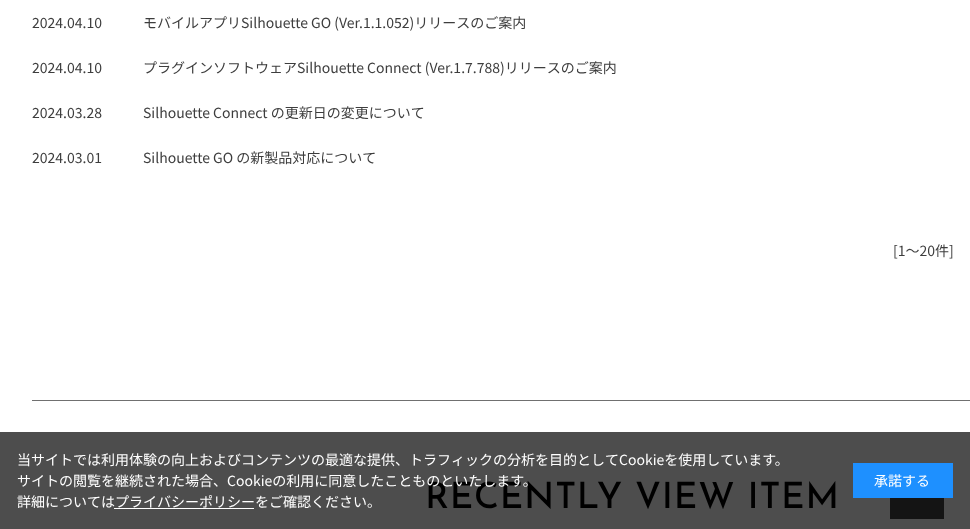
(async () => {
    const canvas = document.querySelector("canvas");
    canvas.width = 970;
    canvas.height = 529;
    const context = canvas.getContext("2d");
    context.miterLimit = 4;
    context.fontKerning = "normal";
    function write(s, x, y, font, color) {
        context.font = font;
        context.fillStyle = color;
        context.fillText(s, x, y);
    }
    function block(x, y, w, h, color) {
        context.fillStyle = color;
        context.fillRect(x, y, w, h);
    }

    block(0, 0, 970, 529, "rgb(255, 255, 255)");
    block(0, 432, 970, 97, "rgb(77, 77, 77)");
    write("2024.04.10", 32, 28, "14px Noto Sans JP", "rgb(61, 61, 61)");
    write("モバイルアプリSilhouette GO (Ver.1.1.052)リリースのご案内", 143, 28, "14px Noto Sans JP", "rgb(61, 61, 61)");
    write("2024.04.10", 32, 73, "14px Noto Sans JP", "rgb(61, 61, 61)");
    write("プラグインソフトウェアSilhouette Connect (Ver.1.7.788)リリースのご案内", 143, 73, "14px Noto Sans JP", "rgb(61, 61, 61)");
    write("2024.03.28", 32, 118, "14px Noto Sans JP", "rgb(61, 61, 61)");
    write("Silhouette Connect の更新日の変更について", 143, 118, "14px Noto Sans JP", "rgb(61, 61, 61)");
    write("2024.03.01", 32, 163, "14px Noto Sans JP", "rgb(61, 61, 61)");
    write("Silhouette GO の新製品対応について", 143, 163, "14px Noto Sans JP", "rgb(61, 61, 61)");
    write("[1～20件]", 893, 256, "14px Noto Sans JP", "rgb(61, 61, 61)");
    block(32, 400, 938, 1, "rgb(112, 112, 112)");
    context.letterSpacing = "0.75px";
    write("RECENTLY VIEW ITEM", 425, 508, "500 36px Josefin Sans", "rgb(0, 0, 0)");
    block(890, 498, 54, 21, "rgb(20, 20, 20)");
    context.letterSpacing = "0px";
    write("当サイトでは利用体験の向上およびコンテンツの最適な提供、トラフィックの分析を目的としてCookieを使用しています。", 17, 465, "14px Noto Sans JP", "rgb(255, 255, 255)");
    write("サイトの閲覧を継続された場合、Cookieの利用に同意したことものといたします。", 17, 486, "14px Noto Sans JP", "rgb(255, 255, 255)");
    write("詳細についてはプライバシーポリシーをご確認ください。", 17, 507, "14px Noto Sans JP", "rgb(255, 255, 255)");
    block(114, 508, 140, 1, "rgb(255, 255, 255)");
    block(853, 463, 100, 35, "rgb(30, 144, 255)");
    write("承諾する", 874, 486, "14px Noto Sans JP", "rgb(255, 255, 255)");
})();
